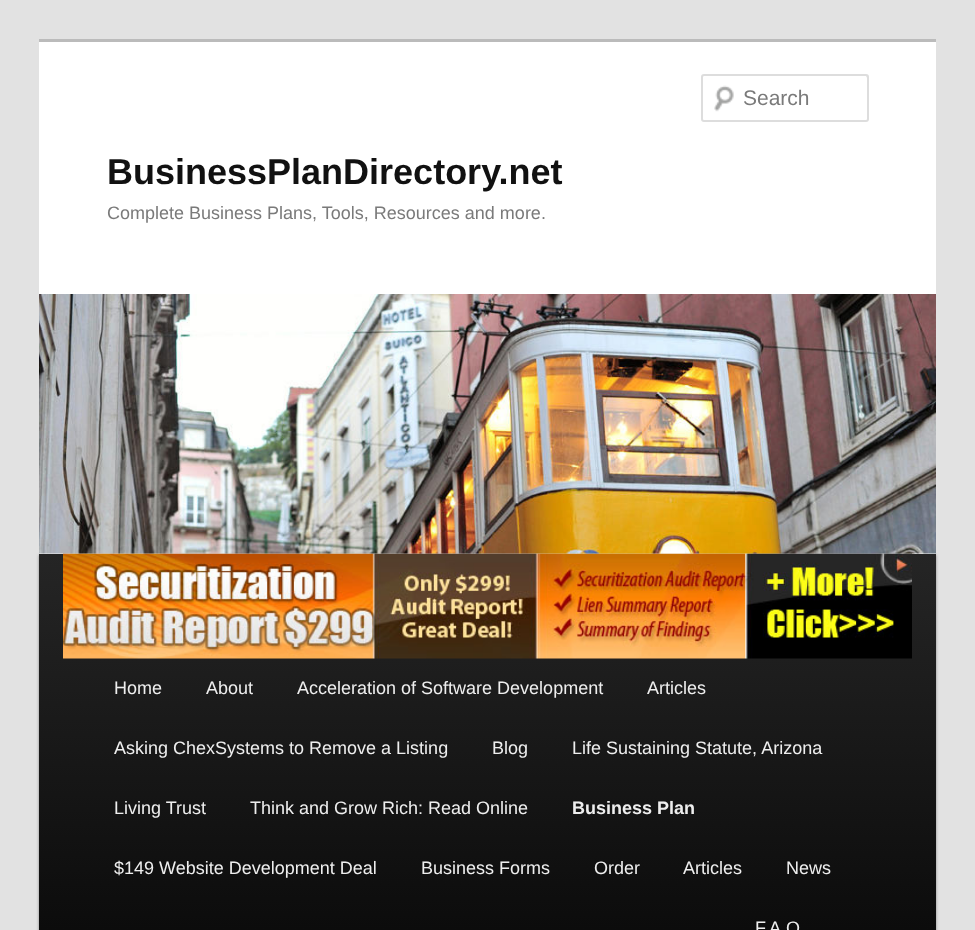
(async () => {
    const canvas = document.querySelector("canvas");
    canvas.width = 975;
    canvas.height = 930;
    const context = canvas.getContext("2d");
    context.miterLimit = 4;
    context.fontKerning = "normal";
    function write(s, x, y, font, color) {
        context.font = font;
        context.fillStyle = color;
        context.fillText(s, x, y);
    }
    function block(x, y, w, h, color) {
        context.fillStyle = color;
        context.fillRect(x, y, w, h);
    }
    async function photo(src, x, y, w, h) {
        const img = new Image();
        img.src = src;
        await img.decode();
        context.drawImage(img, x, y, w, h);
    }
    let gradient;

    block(0, 0, 975, 930, "rgb(226, 226, 226)");
    block(39, 42, 897, 512, "rgb(255, 255, 255)");
    block(39, 39, 897, 3, "rgb(187, 187, 187)");
    await photo("media/1.png", 714, 85, 20, 27);
    context.fillStyle = "rgb(230, 230, 230)";
    context.beginPath();
    context.moveTo(704, 76);
    context.lineTo(866, 76);
    context.lineTo(867, 78);
    context.lineTo(867, 76);
    context.bezierCurveTo(867, 76, 866, 75, 866, 75);
    context.lineTo(704, 75);
    context.bezierCurveTo(703, 75, 702, 76, 702, 76);
    context.lineTo(702, 78);
    context.bezierCurveTo(702, 77, 703, 76, 704, 76);
    context.closePath();
    context.fill();
    context.beginPath();
    context.roundRect(702, 75, 166, 46, 2);
    context.strokeStyle = "rgb(221, 221, 221)";
    context.lineWidth = 2;
    context.stroke();
    write("Search", 743, 105, "21px Liberation Sans", "rgb(122, 122, 122)");
    write("BusinessPlanDirectory.net", 107, 184, "bold 36px Liberation Sans", "rgb(17, 17, 17)");
    write("Complete Business Plans, Tools, Resources and more.", 107, 219, "18px Liberation Sans", "rgb(122, 122, 122)");
    context.fillStyle = "rgba(0, 0, 0, 0.4)";
    context.filter = "blur(1.5px)";
    context.beginPath();
    context.rect(39, 555, 897, 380);
    context.fill();
    context.filter = "none";
    gradient = context.createLinearGradient(488, 554, 488, 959);
    gradient.addColorStop(0, "rgb(37, 37, 37)");
    gradient.addColorStop(1, "rgb(10, 10, 10)");
    context.fillStyle = gradient;
    context.fillRect(39, 554, 897, 376);
    await photo("media/3.png", 63, 553, 849, 106);
    await photo("media/2.png", 39, 294, 897, 260);
    write("Home", 114, 694, "18px Liberation Sans", "rgb(238, 238, 238)");
    write("About", 206, 694, "18px Liberation Sans", "rgb(238, 238, 238)");
    write("Acceleration of Software Development", 297, 694, "18px Liberation Sans", "rgb(238, 238, 238)");
    write("Articles", 647, 694, "18px Liberation Sans", "rgb(238, 238, 238)");
    write("Asking ChexSystems to Remove a Listing", 114, 754, "18px Liberation Sans", "rgb(238, 238, 238)");
    write("Blog", 492, 754, "18px Liberation Sans", "rgb(238, 238, 238)");
    write("Life Sustaining Statute, Arizona", 572, 754, "18px Liberation Sans", "rgb(238, 238, 238)");
    write("Living Trust", 114, 814, "18px Liberation Sans", "rgb(238, 238, 238)");
    write("Think and Grow Rich: Read Online", 250, 814, "18px Liberation Sans", "rgb(238, 238, 238)");
    write("Business Plan", 572, 814, "bold 18px Liberation Sans", "rgb(238, 238, 238)");
    write("$149 Website Development Deal", 114, 874, "18px Liberation Sans", "rgb(238, 238, 238)");
    write("Business Forms", 421, 874, "18px Liberation Sans", "rgb(238, 238, 238)");
    write("Order", 594, 874, "18px Liberation Sans", "rgb(238, 238, 238)");
    write("Articles", 683, 874, "18px Liberation Sans", "rgb(238, 238, 238)");
    write("News", 786, 874, "18px Liberation Sans", "rgb(238, 238, 238)");
    write("F.A.Q", 755, 934, "18px Liberation Sans", "rgb(238, 238, 238)");
})();
